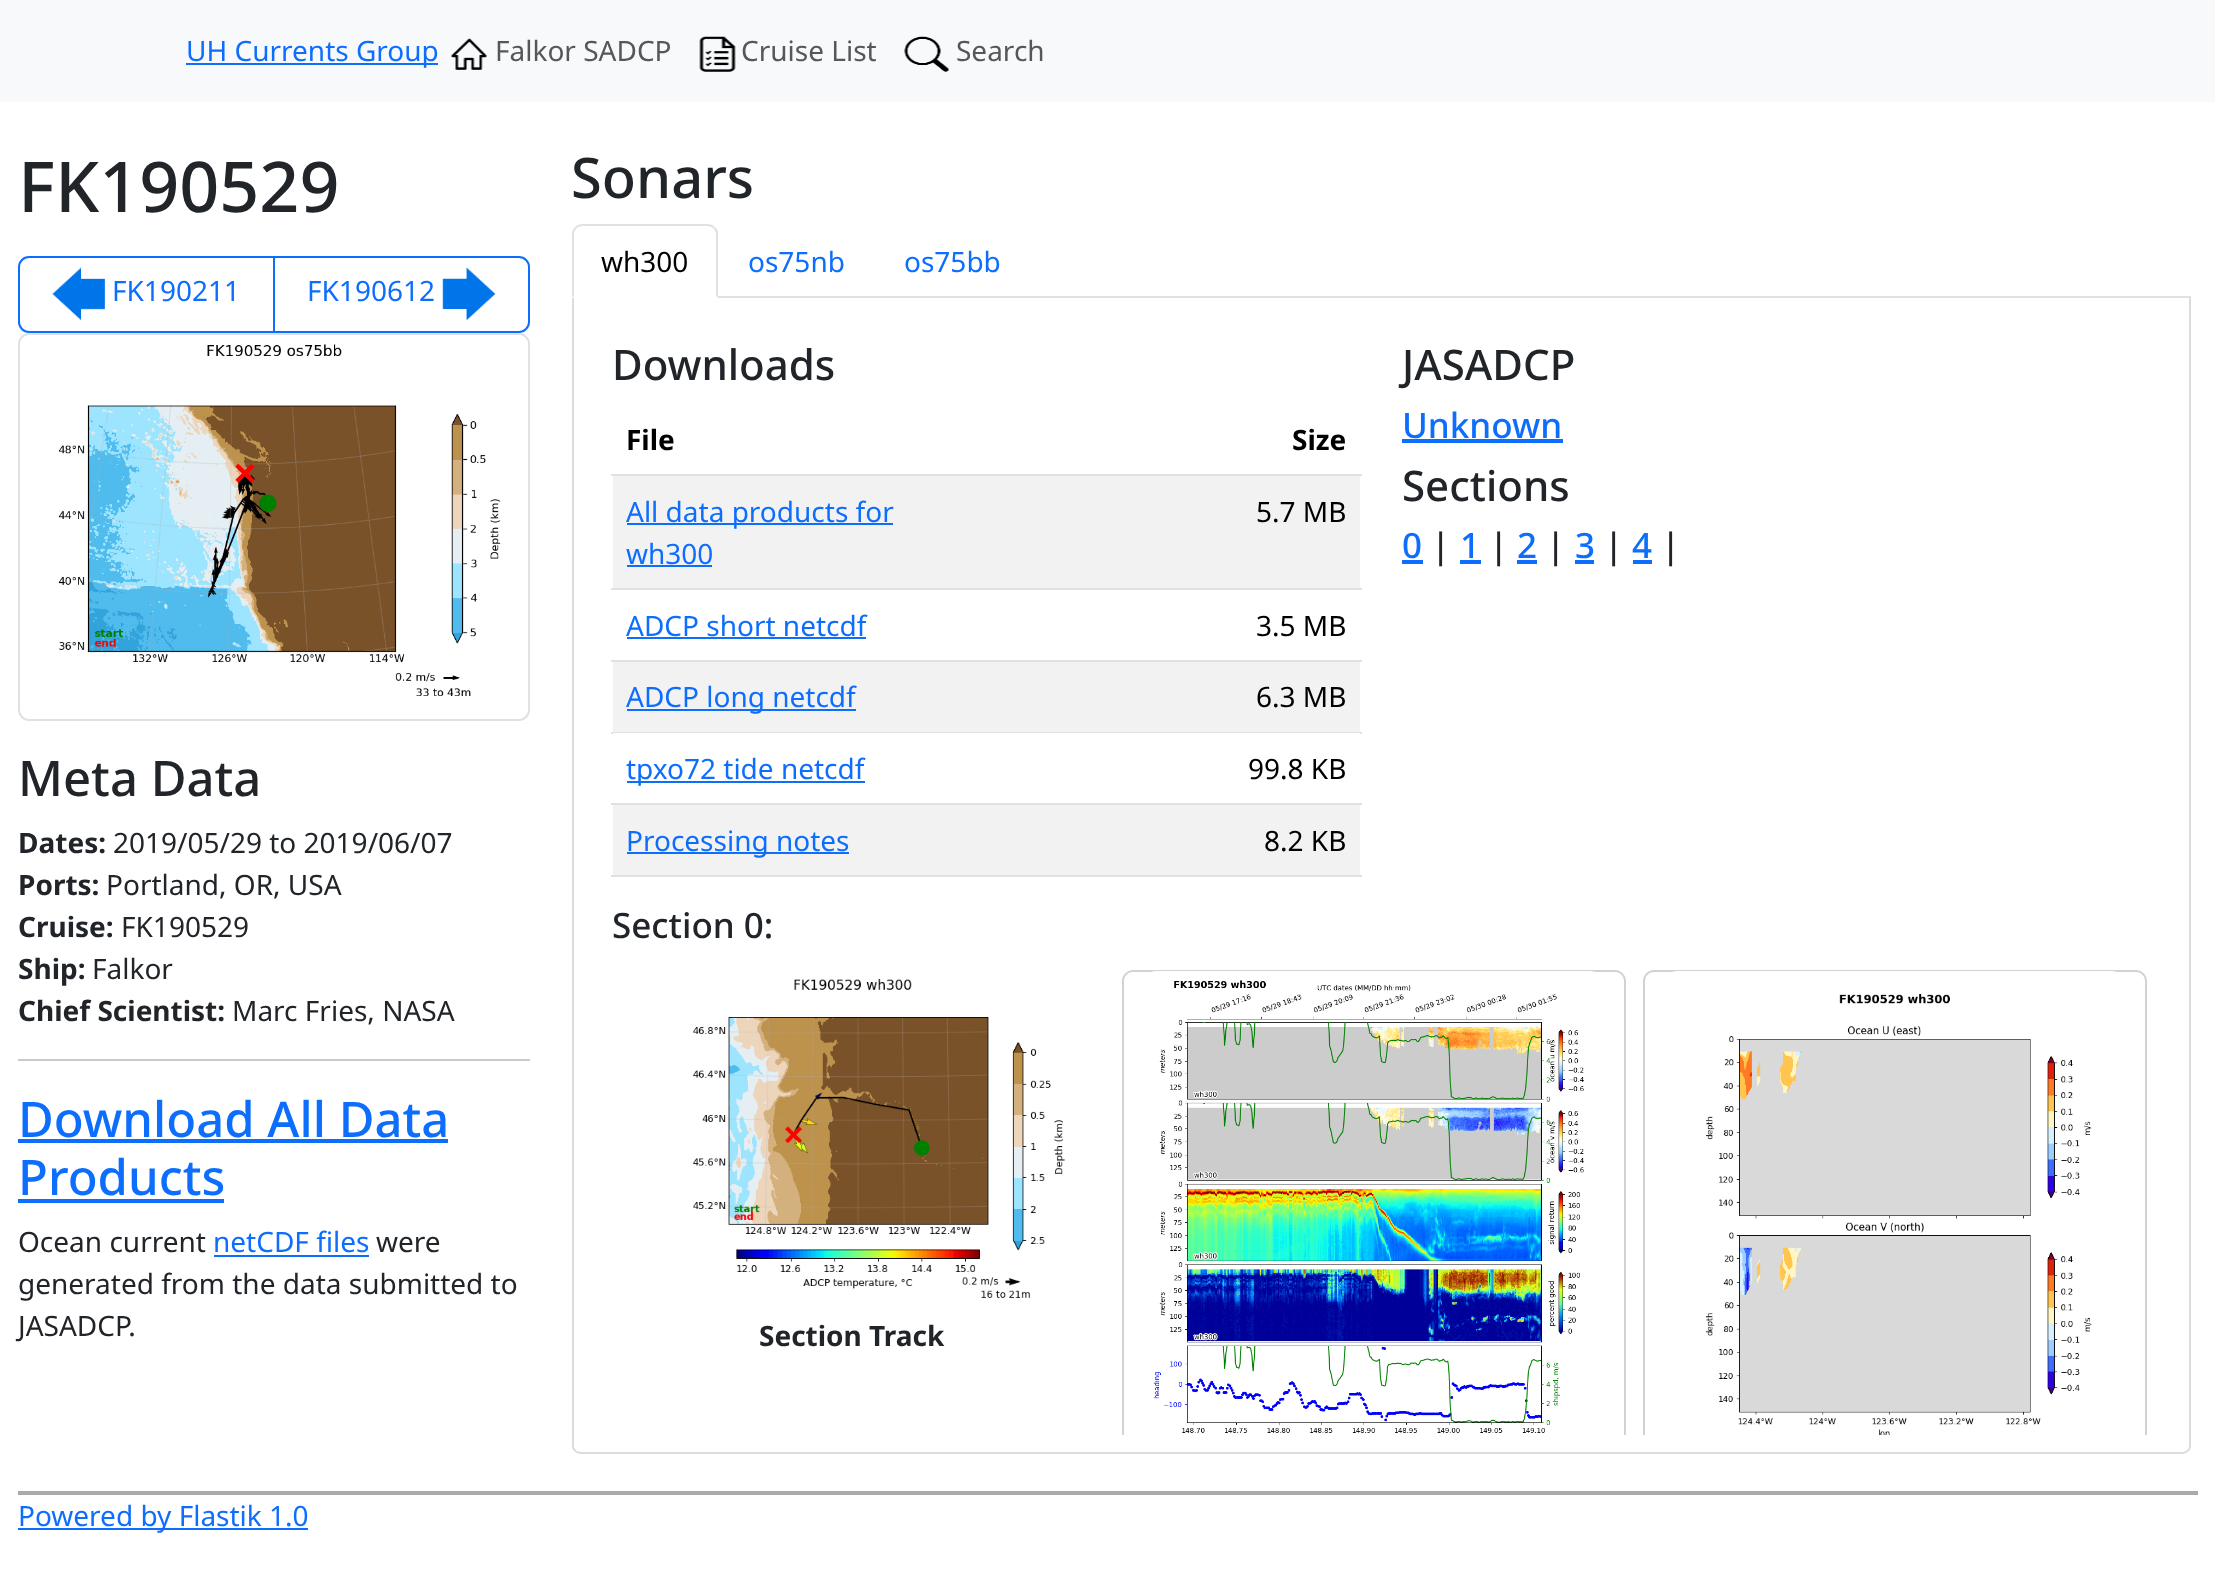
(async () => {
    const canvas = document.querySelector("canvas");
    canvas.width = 2215;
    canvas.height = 1574;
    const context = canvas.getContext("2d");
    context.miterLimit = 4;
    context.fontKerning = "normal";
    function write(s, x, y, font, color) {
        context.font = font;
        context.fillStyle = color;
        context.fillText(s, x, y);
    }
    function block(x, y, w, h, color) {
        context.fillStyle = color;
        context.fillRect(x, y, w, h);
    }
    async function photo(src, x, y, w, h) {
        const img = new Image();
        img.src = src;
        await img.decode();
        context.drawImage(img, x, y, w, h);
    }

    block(0, 0, 2215, 1574, "rgb(255, 255, 255)");
    block(0, 0, 2215, 102, "rgb(248, 249, 250)");
    block(186, 63, 252, 2, "rgb(13, 110, 253)");
    write("UH Currents Group", 186, 61, "28px Noto Sans", "rgb(13, 110, 253)");
    await photo("media/1.png", 451, 38, 36, 32);
    write("Falkor SADCP", 495, 61, "28px Noto Sans", "rgb(87, 87, 88)");
    await photo("media/2.png", 699, 36, 37, 36);
    write("Cruise List", 741, 61, "28px Noto Sans", "rgb(87, 87, 88)");
    await photo("media/3.png", 904, 36, 45, 36);
    write("Search", 956, 61, "28px Noto Sans", "rgb(87, 87, 88)");
    write("FK190529", 18, 212, "500 70px Noto Sans", "rgb(33, 37, 41)");
    context.beginPath();
    context.roundRect(19, 257, 255, 75, [10, 0, 0, 10]);
    context.strokeStyle = "rgb(13, 110, 253)";
    context.lineWidth = 2;
    context.stroke();
    await photo("media/4.png", 52, 267, 53, 54);
    write("FK190211", 112, 301, "28px Noto Sans", "rgb(13, 110, 253)");
    context.beginPath();
    context.roundRect(274, 257, 255, 75, [0, 10, 10, 0]);
    context.stroke();
    write("FK190612", 307, 301, "28px Noto Sans", "rgb(13, 110, 253)");
    await photo("media/5.png", 442, 267, 54, 54);
    context.beginPath();
    context.roundRect(19, 334, 510, 386, 10);
    context.strokeStyle = "rgb(222, 226, 230)";
    context.stroke();
    await photo("media/6.png", 58, 344, 443, 352);
    write("Meta Data", 18, 796, "500 49px Noto Sans", "rgb(33, 37, 41)");
    write("Dates:", 18, 853, "bold 28px Noto Sans", "rgb(33, 37, 41)");
    write("2019/05/29 to 2019/06/07", 113, 853, "28px Noto Sans", "rgb(33, 37, 41)");
    write("Ports:", 18, 895, "bold 28px Noto Sans", "rgb(33, 37, 41)");
    write("Portland, OR, USA", 106, 895, "28px Noto Sans", "rgb(33, 37, 41)");
    write("Cruise:", 18, 937, "bold 28px Noto Sans", "rgb(33, 37, 41)");
    write("FK190529", 121, 937, "28px Noto Sans", "rgb(33, 37, 41)");
    write("Ship:", 18, 979, "bold 28px Noto Sans", "rgb(33, 37, 41)");
    write("Falkor", 92, 979, "28px Noto Sans", "rgb(33, 37, 41)");
    write("Chief Scientist:", 18, 1021, "bold 28px Noto Sans", "rgb(33, 37, 41)");
    write("Marc Fries, NASA", 232, 1021, "28px Noto Sans", "rgb(33, 37, 41)");
    block(18, 1059, 512, 2, "rgb(200, 201, 202)");
    write("Download All Data", 18, 1137, "500 49px Noto Sans", "rgb(13, 110, 253)");
    block(18, 1139, 430, 4, "rgb(13, 110, 253)");
    write("Products", 18, 1195, "500 49px Noto Sans", "rgb(13, 110, 253)");
    block(18, 1199, 206, 4, "rgb(13, 110, 253)");
    write("Ocean current", 18, 1252, "28px Noto Sans", "rgb(33, 37, 41)");
    write("netCDF files", 213, 1252, "28px Noto Sans", "rgb(13, 110, 253)");
    block(214, 1255, 155, 2, "rgb(13, 110, 253)");
    write("were", 376, 1252, "28px Noto Sans", "rgb(33, 37, 41)");
    write("generated from the data submitted to", 18, 1294, "28px Noto Sans", "rgb(33, 37, 41)");
    write("JASADCP.", 18, 1336, "28px Noto Sans", "rgb(33, 37, 41)");
    write("Sonars", 571, 198, "500 56px Noto Sans", "rgb(33, 37, 41)");
    block(718, 296, 1473, 2, "rgb(222, 226, 230)");
    context.beginPath();
    context.moveTo(583, 224);
    context.bezierCurveTo(580, 224, 577, 225, 575, 227);
    context.lineTo(577, 228);
    context.bezierCurveTo(578, 227, 581, 226, 583, 226);
    context.lineTo(707, 226);
    context.bezierCurveTo(709, 226, 712, 227, 713, 228);
    context.lineTo(715, 227);
    context.bezierCurveTo(713, 225, 710, 224, 707, 224);
    context.closePath();
    context.fill();
    context.beginPath();
    context.moveTo(715, 227);
    context.lineTo(718, 231);
    context.lineTo(718, 298);
    context.lineTo(716, 296);
    context.lineTo(716, 234);
    context.bezierCurveTo(716, 232, 715, 230, 713, 228);
    context.closePath();
    context.fill();
    context.fillStyle = "rgb(255, 255, 255)";
    context.beginPath();
    context.moveTo(718, 298);
    context.lineTo(716, 296);
    context.lineTo(574, 296);
    context.lineTo(572, 298);
    context.closePath();
    context.fill();
    context.fillStyle = "rgb(222, 226, 230)";
    context.beginPath();
    context.moveTo(572, 298);
    context.lineTo(572, 232);
    context.bezierCurveTo(573, 230, 574, 228, 575, 227);
    context.lineTo(577, 228);
    context.bezierCurveTo(575, 230, 574, 232, 574, 234);
    context.lineTo(574, 296);
    context.closePath();
    context.fill();
    write("wh300", 601, 272, "28px Noto Sans", "rgb(0, 0, 0)");
    write("os75nb", 748, 272, "28px Noto Sans", "rgb(13, 110, 253)");
    write("os75bb", 904, 272, "28px Noto Sans", "rgb(13, 110, 253)");
    context.fillStyle = "rgb(220, 220, 220)";
    context.beginPath();
    context.moveTo(572, 298);
    context.lineTo(2191, 298);
    context.lineTo(2191, 1446);
    context.bezierCurveTo(2191, 1450, 2187, 1454, 2182, 1454);
    context.lineTo(581, 1454);
    context.bezierCurveTo(576, 1454, 572, 1450, 572, 1446);
    context.closePath();
    context.moveTo(574, 298);
    context.lineTo(2189, 298);
    context.lineTo(2189, 1446);
    context.bezierCurveTo(2189, 1449, 2186, 1452, 2182, 1452);
    context.lineTo(581, 1452);
    context.bezierCurveTo(577, 1452, 574, 1449, 574, 1446);
    context.closePath();
    context.fill("evenodd");
    write("Downloads", 612, 380, "500 42px Noto Sans", "rgb(33, 37, 41)");
    write("File", 626, 450, "bold 28px Noto Sans", "rgb(0, 0, 0)");
    block(611, 474, 751, 2, "rgb(222, 226, 230)");
    write("Size", 1292, 450, "bold 28px Noto Sans", "rgb(0, 0, 0)");
    block(613, 476, 747, 112, "rgb(242, 242, 242)");
    block(627, 523, 266, 2, "rgb(13, 110, 253)");
    write("All data products for", 626, 522, "28px Noto Sans", "rgb(13, 110, 253)");
    write("wh300", 626, 564, "28px Noto Sans", "rgb(13, 110, 253)");
    block(627, 565, 85, 2, "rgb(13, 110, 253)");
    block(611, 588, 751, 2, "rgb(222, 226, 230)");
    write("5.7 MB", 1256, 522, "28px Noto Sans", "rgb(0, 0, 0)");
    write("ADCP short netcdf", 626, 636, "28px Noto Sans", "rgb(13, 110, 253)");
    block(627, 637, 239, 2, "rgb(13, 110, 253)");
    block(611, 660, 751, 2, "rgb(222, 226, 230)");
    write("3.5 MB", 1256, 636, "28px Noto Sans", "rgb(0, 0, 0)");
    block(613, 662, 747, 70, "rgb(242, 242, 242)");
    block(627, 709, 229, 2, "rgb(13, 110, 253)");
    write("ADCP long netcdf", 626, 707, "28px Noto Sans", "rgb(13, 110, 253)");
    block(611, 732, 751, 2, "rgb(222, 226, 230)");
    write("6.3 MB", 1256, 707, "28px Noto Sans", "rgb(0, 0, 0)");
    block(613, 733, 747, 1, "rgb(255, 255, 255)");
    block(627, 781, 238, 2, "rgb(13, 110, 253)");
    write("tpxo72 tide netcdf", 626, 779, "28px Noto Sans", "rgb(13, 110, 253)");
    block(611, 803, 751, 2, "rgb(222, 226, 230)");
    write("99.8 KB", 1248, 779, "28px Noto Sans", "rgb(0, 0, 0)");
    block(613, 805, 747, 70, "rgb(242, 242, 242)");
    block(627, 852, 222, 2, "rgb(13, 110, 253)");
    write("Processing notes", 626, 851, "28px Noto Sans", "rgb(13, 110, 253)");
    block(611, 875, 751, 2, "rgb(222, 226, 230)");
    write("8.2 KB", 1264, 851, "28px Noto Sans", "rgb(0, 0, 0)");
    write("JASADCP", 1402, 380, "500 42px Noto Sans", "rgb(33, 37, 41)");
    write("Unknown", 1402, 438, "500 35px Noto Sans", "rgb(13, 110, 253)");
    block(1402, 439, 161, 4, "rgb(13, 110, 253)");
    write("Sections", 1402, 501, "500 42px Noto Sans", "rgb(33, 37, 41)");
    write("0", 1402, 558, "500 35px Noto Sans", "rgb(13, 110, 253)");
    block(1402, 560, 21, 4, "rgb(13, 110, 253)");
    write("|", 1431, 558, "500 35px Noto Sans", "rgb(33, 37, 41)");
    write("1", 1460, 558, "500 35px Noto Sans", "rgb(13, 110, 253)");
    block(1460, 560, 21, 4, "rgb(13, 110, 253)");
    write("|", 1489, 558, "500 35px Noto Sans", "rgb(33, 37, 41)");
    write("2", 1517, 558, "500 35px Noto Sans", "rgb(13, 110, 253)");
    block(1517, 560, 20, 4, "rgb(13, 110, 253)");
    write("|", 1546, 558, "500 35px Noto Sans", "rgb(33, 37, 41)");
    write("3", 1575, 558, "500 35px Noto Sans", "rgb(13, 110, 253)");
    block(1575, 560, 19, 4, "rgb(13, 110, 253)");
    write("|", 1604, 558, "500 35px Noto Sans", "rgb(33, 37, 41)");
    write("4", 1632, 558, "500 35px Noto Sans", "rgb(13, 110, 253)");
    block(1633, 560, 19, 4, "rgb(13, 110, 253)");
    write("|", 1661, 558, "500 35px Noto Sans", "rgb(33, 37, 41)");
    write("Section 0:", 612, 938, "500 35px Noto Sans", "rgb(33, 37, 41)");
    await photo("media/7.png", 692, 978, 373, 320);
    write("Section Track", 759, 1346, "bold 28px Noto Sans", "rgb(33, 37, 41)");
    context.save();
    context.beginPath();
    context.rect(592, 298, 1580, 1137);
    context.clip();
    context.fillStyle = "rgb(210, 210, 210)";
    context.beginPath();
    context.moveTo(1133, 970);
    context.bezierCurveTo(1127, 970, 1122, 975, 1122, 981);
    context.lineTo(1122, 1453);
    context.lineTo(1124, 1453);
    context.lineTo(1124, 981);
    context.bezierCurveTo(1124, 976, 1128, 972, 1133, 972);
    context.lineTo(1615, 972);
    context.bezierCurveTo(1620, 972, 1624, 976, 1624, 981);
    context.lineTo(1624, 1453);
    context.lineTo(1626, 1453);
    context.lineTo(1626, 981);
    context.bezierCurveTo(1626, 975, 1621, 970, 1615, 970);
    context.closePath();
    context.fill();
    context.restore();
    context.fillStyle = "rgb(255, 255, 255)";
    context.beginPath();
    context.roundRect(1145, 971, 456, 464, [11, 11, 0, 0]);
    context.fill();
    await photo("media/8.png", 1153, 980, 431, 453);
    context.save();
    context.beginPath();
    context.rect(592, 298, 1580, 1137);
    context.clip();
    context.fillStyle = "rgb(210, 210, 210)";
    context.beginPath();
    context.moveTo(1654, 970);
    context.bezierCurveTo(1648, 970, 1643, 975, 1643, 981);
    context.lineTo(1643, 1453);
    context.lineTo(1645, 1453);
    context.lineTo(1645, 981);
    context.bezierCurveTo(1645, 976, 1649, 972, 1654, 972);
    context.lineTo(2136, 972);
    context.bezierCurveTo(2141, 972, 2145, 976, 2145, 981);
    context.lineTo(2145, 1453);
    context.lineTo(2147, 1453);
    context.lineTo(2147, 981);
    context.bezierCurveTo(2147, 975, 2142, 970, 2136, 970);
    context.closePath();
    context.fill();
    context.restore();
    context.beginPath();
    context.roundRect(1666, 971, 457, 464, [11, 11, 0, 0]);
    context.fill();
    await photo("media/9.png", 1706, 994, 386, 441);
    block(18, 1491, 2180, 4, "rgb(170, 170, 170)");
    block(18, 1528, 290, 2, "rgb(13, 110, 253)");
    write("Powered by Flastik 1.0", 18, 1526, "28px Noto Sans", "rgb(13, 110, 253)");
})();
